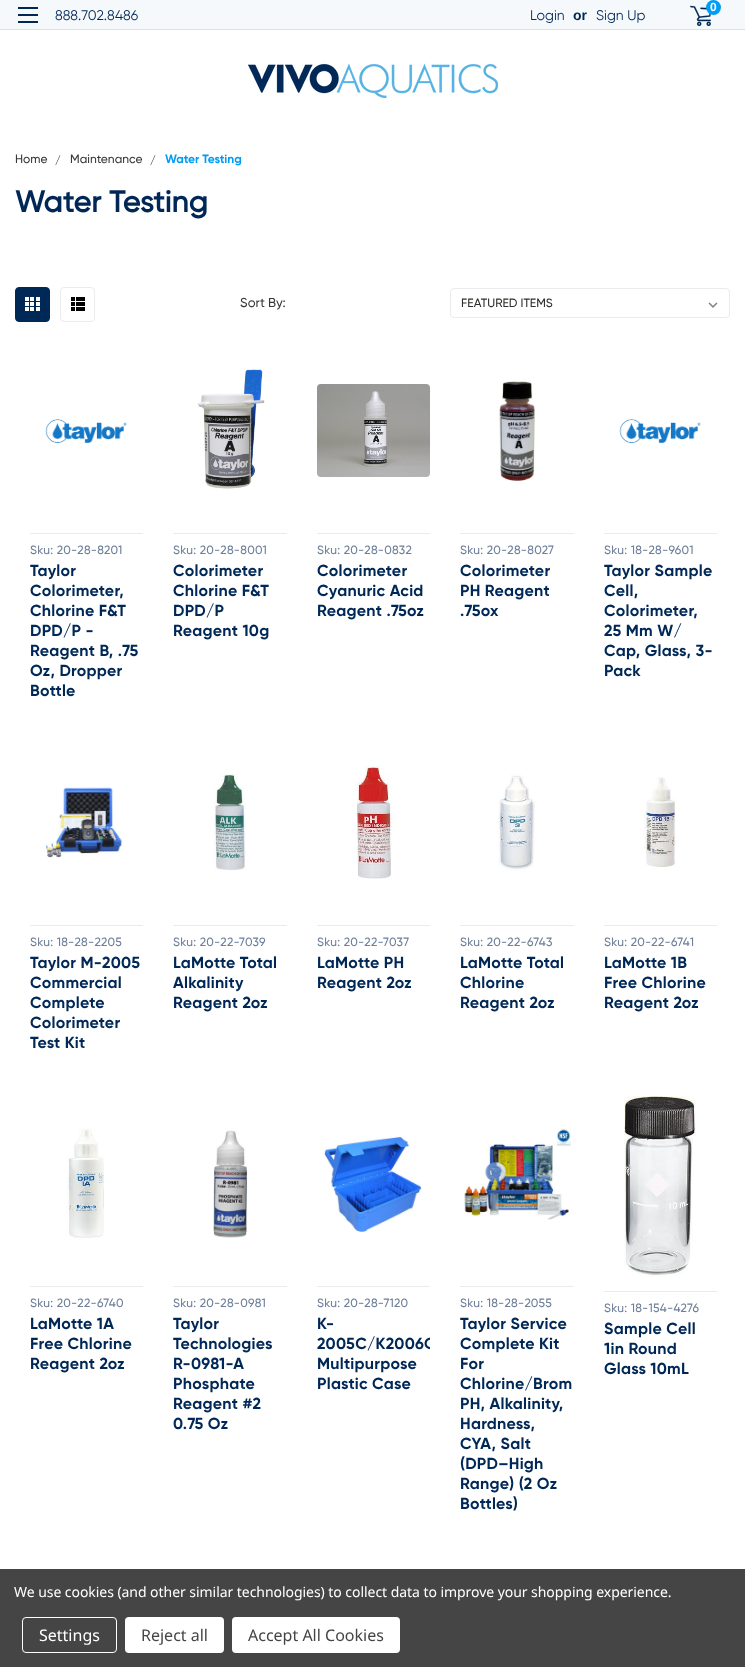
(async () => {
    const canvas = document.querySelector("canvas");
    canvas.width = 745;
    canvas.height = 1667;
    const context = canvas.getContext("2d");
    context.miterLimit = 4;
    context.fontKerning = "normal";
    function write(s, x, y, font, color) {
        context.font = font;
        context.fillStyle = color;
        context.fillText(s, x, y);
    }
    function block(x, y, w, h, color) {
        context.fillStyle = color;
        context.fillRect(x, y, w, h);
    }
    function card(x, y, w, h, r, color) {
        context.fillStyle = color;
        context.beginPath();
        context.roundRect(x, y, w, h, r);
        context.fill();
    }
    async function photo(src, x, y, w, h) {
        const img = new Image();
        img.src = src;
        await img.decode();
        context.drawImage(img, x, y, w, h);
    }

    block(0, 0, 745, 1667, "rgb(255, 255, 255)");
    block(0, 0, 745, 29, "rgb(246, 249, 252)");
    block(0, 29, 745, 1, "rgb(224, 224, 224)");
    block(18, 14, 20, 2, "rgb(0, 40, 87)");
    block(18, 7, 20, 2, "rgb(0, 40, 87)");
    block(18, 21, 20, 2, "rgb(0, 40, 87)");
    write("888.702.8486", 55, 20, "14px Gilroy", "rgb(0, 40, 87)");
    await photo("media/1.png", 690, 5, 21, 22);
    context.fillStyle = "rgb(0, 156, 245)";
    context.beginPath();
    context.arc(713.5, 7.5, 7.5, 0, Math.PI * 2);
    context.fill();
    write("0", 710, 11, "bold 12px Liberation Sans", "rgb(255, 255, 255)");
    write("Login", 530, 20, "14px Gilroy", "rgb(0, 40, 87)");
    write("or", 573, 20, "bold 14px Liberation Sans", "rgb(0, 40, 87)");
    write("Sign Up", 596, 20, "14px Gilroy", "rgb(0, 40, 87)");
    await photo("media/2.png", 248, 63, 250, 35);
    write("Home", 15, 163, "500 12px Gilroy", "rgb(57, 57, 57)");
    write("/", 55, 164, "500 11px Gilroy", "rgb(57, 57, 57)");
    write("Maintenance", 70, 163, "500 12px Gilroy", "rgb(57, 57, 57)");
    write("/", 150, 164, "500 11px Gilroy", "rgb(57, 57, 57)");
    write("Water Testing", 165, 163, "bold 12px 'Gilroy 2'", "rgb(0, 156, 245)");
    context.letterSpacing = "0.25px";
    write("Water Testing", 15, 212, "bold 30px Gilroy", "rgb(0, 40, 87)");
    context.beginPath();
    context.roundRect(15.5, 287.5, 34, 34, 3.5);
    context.fill();
    context.strokeStyle = "rgb(0, 40, 87)";
    context.stroke();
    await photo("media/3.png", 25, 297, 15, 14);
    context.beginPath();
    context.roundRect(60.5, 287.5, 34, 34, 3.5);
    context.strokeStyle = "rgb(235, 235, 235)";
    context.stroke();
    await photo("media/4.png", 71, 297, 14, 14);
    context.letterSpacing = "0px";
    write("Sort By:", 240, 307, "500 13px Gilroy", "rgb(57, 57, 57)");
    await photo("media/5.png", 708, 302, 10, 6);
    context.beginPath();
    context.roundRect(450.5, 288.5, 279, 29, 3.5);
    context.stroke();
    write("FEATURED ITEMS", 461, 307, "500 12px Gilroy", "rgb(47, 47, 43)");
    await photo("media/6.png", 45, 419, 82, 25);
    block(30, 533, 113, 1, "rgb(235, 235, 235)");
    context.letterSpacing = "0.25px";
    write("Sku: 20-28-8201", 30, 554, "500 12px Gilroy", "rgb(110, 128, 154)");
    write("Taylor", 30, 576, "bold 16px 'Gilroy 2'", "rgb(0, 40, 87)");
    write("Colorimeter,", 30, 596, "bold 16px 'Gilroy 2'", "rgb(0, 40, 87)");
    write("Chlorine F&T", 30, 616, "bold 16px 'Gilroy 2'", "rgb(0, 40, 87)");
    write("DPD/P -", 30, 636, "bold 16px 'Gilroy 2'", "rgb(0, 40, 87)");
    write("Reagent B, .75", 30, 656, "bold 16px 'Gilroy 2'", "rgb(0, 40, 87)");
    write("Oz, Dropper", 30, 676, "bold 16px 'Gilroy 2'", "rgb(0, 40, 87)");
    write("Bottle", 30, 696, "bold 16px 'Gilroy 2'", "rgb(0, 40, 87)");
    await photo("media/7.png", 197, 369, 68, 120);
    block(173, 533, 114, 1, "rgb(235, 235, 235)");
    write("Sku: 20-28-8001", 173, 554, "500 12px Gilroy", "rgb(110, 128, 154)");
    write("Colorimeter", 173, 576, "bold 16px 'Gilroy 2'", "rgb(0, 40, 87)");
    write("Chlorine F&T", 173, 596, "bold 16px 'Gilroy 2'", "rgb(0, 40, 87)");
    write("DPD/P", 173, 616, "bold 16px 'Gilroy 2'", "rgb(0, 40, 87)");
    write("Reagent 10g", 173, 636, "bold 16px 'Gilroy 2'", "rgb(0, 40, 87)");
    await photo("media/8.png", 317, 384, 113, 93);
    block(317, 533, 113, 1, "rgb(235, 235, 235)");
    write("Sku: 20-28-0832", 317, 554, "500 12px Gilroy", "rgb(110, 128, 154)");
    write("Colorimeter", 317, 576, "bold 16px 'Gilroy 2'", "rgb(0, 40, 87)");
    write("Cyanuric Acid", 317, 596, "bold 16px 'Gilroy 2'", "rgb(0, 40, 87)");
    write("Reagent .75oz", 317, 616, "bold 16px 'Gilroy 2'", "rgb(0, 40, 87)");
    await photo("media/9.png", 499, 381, 36, 100);
    block(460, 533, 114, 1, "rgb(235, 235, 235)");
    write("Sku: 20-28-8027", 460, 554, "500 12px Gilroy", "rgb(110, 128, 154)");
    write("Colorimeter", 460, 576, "bold 16px 'Gilroy 2'", "rgb(0, 40, 87)");
    write("PH Reagent", 460, 596, "bold 16px 'Gilroy 2'", "rgb(0, 40, 87)");
    write(".75ox", 460, 616, "bold 16px 'Gilroy 2'", "rgb(0, 40, 87)");
    await photo("media/6.png", 619, 419, 82, 25);
    block(604, 533, 113, 1, "rgb(235, 235, 235)");
    write("Sku: 18-28-9601", 604, 554, "500 12px Gilroy", "rgb(110, 128, 154)");
    write("Taylor Sample", 604, 576, "bold 16px 'Gilroy 2'", "rgb(0, 40, 87)");
    write("Cell,", 604, 596, "bold 16px 'Gilroy 2'", "rgb(0, 40, 87)");
    write("Colorimeter,", 604, 616, "bold 16px 'Gilroy 2'", "rgb(0, 40, 87)");
    write("25 Mm W/", 604, 636, "bold 16px 'Gilroy 2'", "rgb(0, 40, 87)");
    write("Cap, Glass, 3-", 604, 656, "bold 16px 'Gilroy 2'", "rgb(0, 40, 87)");
    write("Pack", 604, 676, "bold 16px 'Gilroy 2'", "rgb(0, 40, 87)");
    await photo("media/10.png", 46, 787, 77, 71);
    block(30, 925, 113, 1, "rgb(235, 235, 235)");
    write("Sku: 18-28-2205", 30, 946, "500 12px Gilroy", "rgb(110, 128, 154)");
    write("Taylor M-2005", 30, 968, "bold 16px 'Gilroy 2'", "rgb(0, 40, 87)");
    write("Commercial", 30, 988, "bold 16px 'Gilroy 2'", "rgb(0, 40, 87)");
    write("Complete", 30, 1008, "bold 16px 'Gilroy 2'", "rgb(0, 40, 87)");
    write("Colorimeter", 30, 1028, "bold 16px 'Gilroy 2'", "rgb(0, 40, 87)");
    write("Test Kit", 30, 1048, "bold 16px 'Gilroy 2'", "rgb(0, 40, 87)");
    await photo("media/11.png", 213, 774, 33, 97);
    block(173, 925, 114, 1, "rgb(235, 235, 235)");
    write("Sku: 20-22-7039", 173, 946, "500 12px Gilroy", "rgb(110, 128, 154)");
    write("LaMotte Total", 173, 968, "bold 16px 'Gilroy 2'", "rgb(0, 40, 87)");
    write("Alkalinity", 173, 988, "bold 16px 'Gilroy 2'", "rgb(0, 40, 87)");
    write("Reagent 2oz", 173, 1008, "bold 16px 'Gilroy 2'", "rgb(0, 40, 87)");
    await photo("media/12.png", 357, 766, 40, 113);
    block(317, 925, 113, 1, "rgb(235, 235, 235)");
    write("Sku: 20-22-7037", 317, 946, "500 12px Gilroy", "rgb(110, 128, 154)");
    write("LaMotte PH", 317, 968, "bold 16px 'Gilroy 2'", "rgb(0, 40, 87)");
    write("Reagent 2oz", 317, 988, "bold 16px 'Gilroy 2'", "rgb(0, 40, 87)");
    await photo("media/13.png", 498, 774, 37, 96);
    block(460, 925, 114, 1, "rgb(235, 235, 235)");
    write("Sku: 20-22-6743", 460, 946, "500 12px Gilroy", "rgb(110, 128, 154)");
    write("LaMotte Total", 460, 968, "bold 16px 'Gilroy 2'", "rgb(0, 40, 87)");
    write("Chlorine", 460, 988, "bold 16px 'Gilroy 2'", "rgb(0, 40, 87)");
    write("Reagent 2oz", 460, 1008, "bold 16px 'Gilroy 2'", "rgb(0, 40, 87)");
    await photo("media/14.png", 644, 777, 32, 91);
    block(604, 925, 113, 1, "rgb(235, 235, 235)");
    write("Sku: 20-22-6741", 604, 946, "500 12px Gilroy", "rgb(110, 128, 154)");
    write("LaMotte 1B", 604, 968, "bold 16px 'Gilroy 2'", "rgb(0, 40, 87)");
    write("Free Chlorine", 604, 988, "bold 16px 'Gilroy 2'", "rgb(0, 40, 87)");
    write("Reagent 2oz", 604, 1008, "bold 16px 'Gilroy 2'", "rgb(0, 40, 87)");
    await photo("media/15.png", 66, 1127, 38, 112);
    block(30, 1286, 113, 1, "rgb(235, 235, 235)");
    write("Sku: 20-22-6740", 30, 1307, "500 12px Gilroy", "rgb(110, 128, 154)");
    write("LaMotte 1A", 30, 1329, "bold 16px 'Gilroy 2'", "rgb(0, 40, 87)");
    write("Free Chlorine", 30, 1349, "bold 16px 'Gilroy 2'", "rgb(0, 40, 87)");
    write("Reagent 2oz", 30, 1369, "bold 16px 'Gilroy 2'", "rgb(0, 40, 87)");
    await photo("media/16.png", 213, 1130, 35, 108);
    block(173, 1286, 114, 1, "rgb(235, 235, 235)");
    write("Sku: 20-28-0981", 173, 1307, "500 12px Gilroy", "rgb(110, 128, 154)");
    write("Taylor", 173, 1329, "bold 16px 'Gilroy 2'", "rgb(0, 40, 87)");
    write("Technologies", 173, 1349, "bold 16px 'Gilroy 2'", "rgb(0, 40, 87)");
    write("R-0981-A", 173, 1369, "bold 16px 'Gilroy 2'", "rgb(0, 40, 87)");
    write("Phosphate", 173, 1389, "bold 16px 'Gilroy 2'", "rgb(0, 40, 87)");
    write("Reagent #2", 173, 1409, "bold 16px 'Gilroy 2'", "rgb(0, 40, 87)");
    write("0.75 Oz", 173, 1429, "bold 16px 'Gilroy 2'", "rgb(0, 40, 87)");
    await photo("media/17.png", 324, 1136, 98, 96);
    block(317, 1286, 113, 1, "rgb(235, 235, 235)");
    write("Sku: 20-28-7120", 317, 1307, "500 12px Gilroy", "rgb(110, 128, 154)");
    write("K-", 317, 1329, "bold 16px 'Gilroy 2'", "rgb(0, 40, 87)");
    context.save();
    context.beginPath();
    context.rect(317, 1315, 113, 80);
    context.clip();
    write("2005C/K2006C", 317, 1349, "bold 16px 'Gilroy 2'", "rgb(0, 40, 87)");
    context.restore();
    write("Multipurpose", 317, 1369, "bold 16px 'Gilroy 2'", "rgb(0, 40, 87)");
    write("Plastic Case", 317, 1389, "bold 16px 'Gilroy 2'", "rgb(0, 40, 87)");
    await photo("media/18.png", 464, 1129, 107, 91);
    block(460, 1286, 114, 1, "rgb(235, 235, 235)");
    write("Sku: 18-28-2055", 460, 1307, "500 12px Gilroy", "rgb(110, 128, 154)");
    write("Taylor Service", 460, 1329, "bold 16px 'Gilroy 2'", "rgb(0, 40, 87)");
    write("Complete Kit", 460, 1349, "bold 16px 'Gilroy 2'", "rgb(0, 40, 87)");
    write("For", 460, 1369, "bold 16px 'Gilroy 2'", "rgb(0, 40, 87)");
    write("Chlorine/Brom", 460, 1389, "bold 16px 'Gilroy 2'", "rgb(0, 40, 87)");
    write("PH, Alkalinity,", 460, 1409, "bold 16px 'Gilroy 2'", "rgb(0, 40, 87)");
    write("Hardness,", 460, 1429, "bold 16px 'Gilroy 2'", "rgb(0, 40, 87)");
    write("CYA, Salt", 460, 1449, "bold 16px 'Gilroy 2'", "rgb(0, 40, 87)");
    write("(DPD–High", 460, 1469, "bold 16px 'Gilroy 2'", "rgb(0, 40, 87)");
    write("Range) (2 Oz", 460, 1489, "bold 16px 'Gilroy 2'", "rgb(0, 40, 87)");
    write("Bottles)", 460, 1509, "bold 16px 'Gilroy 2'", "rgb(0, 40, 87)");
    await photo("media/19.png", 624, 1096, 72, 180);
    block(604, 1291, 113, 1, "rgb(235, 235, 235)");
    write("Sku: 18-154-4276", 604, 1312, "500 12px Gilroy", "rgb(110, 128, 154)");
    write("Sample Cell", 604, 1334, "bold 16px 'Gilroy 2'", "rgb(0, 40, 87)");
    write("1in Round", 604, 1354, "bold 16px 'Gilroy 2'", "rgb(0, 40, 87)");
    write("Glass 10mL", 604, 1374, "bold 16px 'Gilroy 2'", "rgb(0, 40, 87)");
    block(0, 1569, 745, 98, "rgb(69, 69, 69)");
    context.letterSpacing = "-0.05px";
    write("We use cookies (and other similar technologies) to collect data to improve your shopping experience.", 14, 1597, "14px Noto Sans", "rgb(255, 255, 255)");
    context.beginPath();
    context.roundRect(22.5, 1617.5, 94, 35, 3.5);
    context.strokeStyle = "rgb(255, 255, 255)";
    context.stroke();
    context.letterSpacing = "0px";
    write("Settings", 39, 1641, "16px Noto Sans", "rgb(255, 255, 255)");
    card(125, 1617, 99, 36, 4, "rgb(255, 255, 255)");
    write("Reject all", 141, 1641, "16px Noto Sans", "rgb(69, 69, 69)");
    card(232, 1617, 168, 36, 4, "rgb(255, 255, 255)");
    write("Accept All Cookies", 248, 1641, "16px Noto Sans", "rgb(69, 69, 69)");
})();
